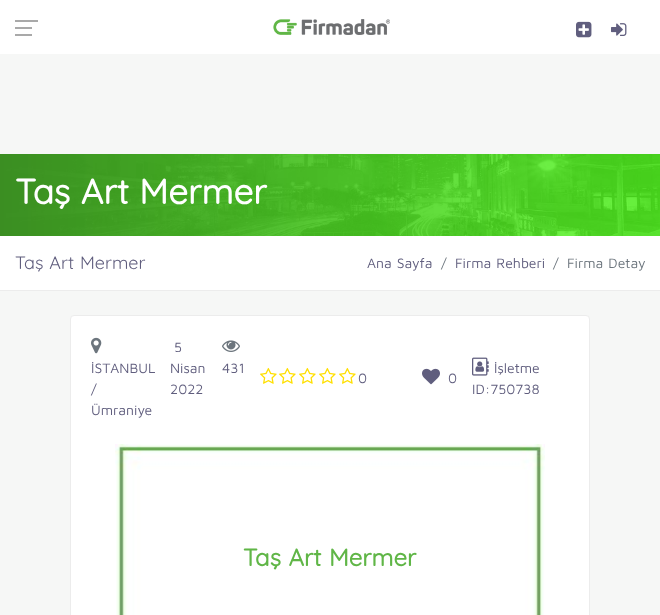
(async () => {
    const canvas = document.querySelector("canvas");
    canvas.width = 660;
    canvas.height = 615;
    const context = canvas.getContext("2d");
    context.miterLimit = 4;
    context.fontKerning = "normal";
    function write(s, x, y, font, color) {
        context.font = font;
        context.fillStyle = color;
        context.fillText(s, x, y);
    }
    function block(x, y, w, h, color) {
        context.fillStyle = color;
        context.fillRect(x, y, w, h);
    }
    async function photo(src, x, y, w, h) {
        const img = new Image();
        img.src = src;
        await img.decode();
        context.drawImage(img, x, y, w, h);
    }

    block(0, 0, 660, 615, "rgb(246, 247, 246)");
    context.fillStyle = "rgba(0, 0, 0, 0.3)";
    context.filter = "blur(0.5px)";
    context.beginPath();
    context.rect(0, 0, 660, 54);
    context.fill();
    context.filter = "none";
    block(0, 0, 660, 54, "rgb(255, 255, 255)");
    block(15, 27, 17, 2, "rgb(169, 169, 169)");
    block(15, 20, 23, 2, "rgb(169, 169, 169)");
    block(15, 34, 17, 2, "rgb(169, 169, 169)");
    await photo("media/1.png", 273, 19, 117, 16);
    await photo("media/2.png", 576, 21, 16, 17);
    await photo("media/3.png", 611, 23, 16, 13);
    await photo("media/4.png", 0, 154, 660, 82);
    context.wordSpacing = "1px";
    write("Taş Art Mermer", 15, 204, "bold 35px Quicksand", "rgb(255, 255, 255)");
    block(0, 236, 660, 54, "rgb(255, 255, 255)");
    block(0, 290, 660, 1, "rgb(236, 236, 236)");
    write("Taş Art Mermer", 15, 269, "300 18px Quicksand", "rgb(96, 94, 126)");
    write("Ana Sayfa", 367, 268, "14px Maven Pro", "rgb(96, 94, 126)");
    context.wordSpacing = "0px";
    write("/", 441, 268, "14px Maven Pro", "rgb(108, 117, 125)");
    context.wordSpacing = "1px";
    write("Firma Rehberi", 455, 268, "14px Maven Pro", "rgb(96, 94, 126)");
    context.wordSpacing = "0px";
    write("/", 553, 268, "14px Maven Pro", "rgb(108, 117, 125)");
    context.wordSpacing = "1px";
    write("Firma Detay", 567, 268, "14px Maven Pro", "rgb(108, 117, 125)");
    context.fillStyle = "rgb(255, 255, 255)";
    context.beginPath();
    context.roundRect(70.5, 315.5, 519, 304, 3.5);
    context.fill();
    context.strokeStyle = "rgb(236, 236, 236)";
    context.stroke();
    await photo("media/5.png", 91, 337, 11, 17);
    context.wordSpacing = "0px";
    write("İSTANBUL", 91, 373, "14px Maven Pro", "rgb(96, 94, 126)");
    write("/", 91, 394, "14px Maven Pro", "rgb(96, 94, 126)");
    write("Ümraniye", 91, 415, "14px Maven Pro", "rgb(96, 94, 126)");
    write("5", 174, 352, "14px Maven Pro", "rgb(96, 94, 126)");
    write("Nisan", 170, 373, "14px Maven Pro", "rgb(96, 94, 126)");
    write("2022", 170, 394, "14px Maven Pro", "rgb(96, 94, 126)");
    await photo("media/6.png", 222, 340, 18, 12);
    write("431", 222, 373, "14px Maven Pro", "rgb(96, 94, 126)");
    await photo("media/7.png", 260, 367, 17, 17);
    await photo("media/7.png", 279, 367, 17, 17);
    await photo("media/7.png", 299, 367, 17, 17);
    await photo("media/7.png", 319, 367, 17, 17);
    await photo("media/7.png", 339, 367, 17, 17);
    write("0", 358, 383, "14px Maven Pro", "rgb(96, 94, 126)");
    await photo("media/8.png", 422, 368, 18, 17);
    write("0", 448, 383, "14px Maven Pro", "rgb(96, 94, 126)");
    await photo("media/9.png", 472, 357, 17, 19);
    write("İşletme", 494, 373, "14px Maven Pro", "rgb(96, 94, 126)");
    write("ID:750738", 472, 394, "14px Maven Pro", "rgb(96, 94, 126)");
    await photo("media/10.png", 115, 444, 430, 171);
    context.wordSpacing = "1px";
    write("Taş Art Mermer", 243, 566, "bold 24px Quicksand", "rgb(96, 182, 71)");
})();
